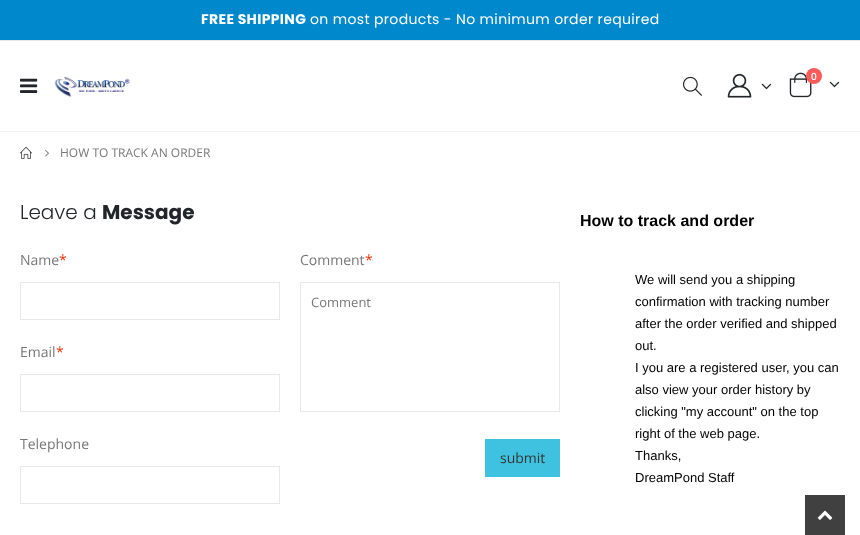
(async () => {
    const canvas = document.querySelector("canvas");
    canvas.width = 860;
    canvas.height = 535;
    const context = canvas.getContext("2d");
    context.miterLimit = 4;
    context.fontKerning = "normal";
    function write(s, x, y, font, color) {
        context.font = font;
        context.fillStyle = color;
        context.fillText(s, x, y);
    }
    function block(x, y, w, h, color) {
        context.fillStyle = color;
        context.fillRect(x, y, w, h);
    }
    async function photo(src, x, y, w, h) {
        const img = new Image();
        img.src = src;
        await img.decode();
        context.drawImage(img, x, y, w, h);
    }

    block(0, 0, 860, 535, "rgb(255, 255, 255)");
    block(0, 0, 860, 40, "rgb(0, 136, 204)");
    context.letterSpacing = "0.35px";
    write("FREE SHIPPING", 201, 24, "bold 14px Poppins", "rgb(255, 255, 255)");
    write("on most products - No minimum order required", 310, 24, "14px Poppins", "rgb(255, 255, 255)");
    block(0, 131, 860, 1, "rgb(244, 244, 244)");
    block(0, 40, 860, 1, "rgb(231, 231, 231)");
    await photo("media/1.png", 20, 78, 18, 15);
    await photo("media/2.png", 54, 76, 76, 21);
    await photo("media/3.png", 682, 76, 20, 20);
    await photo("media/4.png", 727, 73, 25, 25);
    await photo("media/5.png", 761, 83, 11, 7);
    await photo("media/6.png", 789, 72, 23, 26);
    context.fillStyle = "rgb(255, 91, 91)";
    context.beginPath();
    context.arc(814, 76, 8, 0, Math.PI * 2);
    context.fill();
    context.letterSpacing = "0px";
    write("0", 811, 80, "600 10px Open Sans", "rgb(255, 255, 255)");
    await photo("media/5.png", 829, 81, 11, 7);
    await photo("media/7.png", 20, 146, 12, 13);
    await photo("media/8.png", 45, 150, 4, 7);
    write("HOW TO TRACK AN ORDER", 60, 157, "12px Open Sans", "rgb(119, 119, 119)");
    write("Leave a", 20, 219, "300 20px Poppins", "rgb(34, 37, 41)");
    write("Message", 102, 219, "bold 20px Poppins", "rgb(34, 37, 41)");
    write("Name", 20, 265, "14px Open Sans", "rgb(119, 119, 119)");
    write("*", 59, 265, "14px Open Sans", "rgb(235, 52, 10)");
    context.strokeStyle = "rgb(232, 232, 232)";
    context.strokeRect(20.5, 282.5, 259, 37);
    write("Email", 20, 357, "14px Open Sans", "rgb(119, 119, 119)");
    write("*", 56, 357, "14px Open Sans", "rgb(235, 52, 10)");
    context.strokeRect(20.5, 374.5, 259, 37);
    write("Telephone", 20, 449, "14px Open Sans", "rgb(119, 119, 119)");
    context.strokeRect(20.5, 466.5, 259, 37);
    write("Comment", 300, 265, "14px Open Sans", "rgb(119, 119, 119)");
    write("*", 365, 265, "14px Open Sans", "rgb(235, 52, 10)");
    context.strokeRect(300.5, 282.5, 259, 129);
    write("Comment", 311, 307, "13px Open Sans", "rgb(119, 119, 119)");
    block(485, 439, 75, 38, "rgb(62, 194, 223)");
    write("submit", 500, 463, "14px Open Sans", "rgb(51, 51, 51)");
    write("How to track and order", 580, 226, "bold 16px Liberation Sans", "rgb(0, 0, 0)");
    write("We will send you a shipping", 635, 284, "13px Liberation Sans", "rgb(0, 0, 0)");
    write("confirmation with tracking number", 635, 306, "13px Liberation Sans", "rgb(0, 0, 0)");
    write("after the order verified and shipped", 635, 328, "13px Liberation Sans", "rgb(0, 0, 0)");
    write("out.", 635, 350, "13px Liberation Sans", "rgb(0, 0, 0)");
    write("I you are a registered user, you can", 635, 372, "13px Liberation Sans", "rgb(0, 0, 0)");
    write("also view your order history by", 635, 394, "13px Liberation Sans", "rgb(0, 0, 0)");
    write("clicking \"my account\" on the top", 635, 416, "13px Liberation Sans", "rgb(0, 0, 0)");
    write("right of the web page.", 635, 438, "13px Liberation Sans", "rgb(0, 0, 0)");
    write("Thanks,", 635, 460, "13px Liberation Sans", "rgb(0, 0, 0)");
    write("DreamPond Staff", 635, 482, "13px Liberation Sans", "rgb(0, 0, 0)");
    block(805, 495, 40, 40, "rgb(64, 64, 64)");
    await photo("media/9.png", 817, 510, 16, 10);
})();
